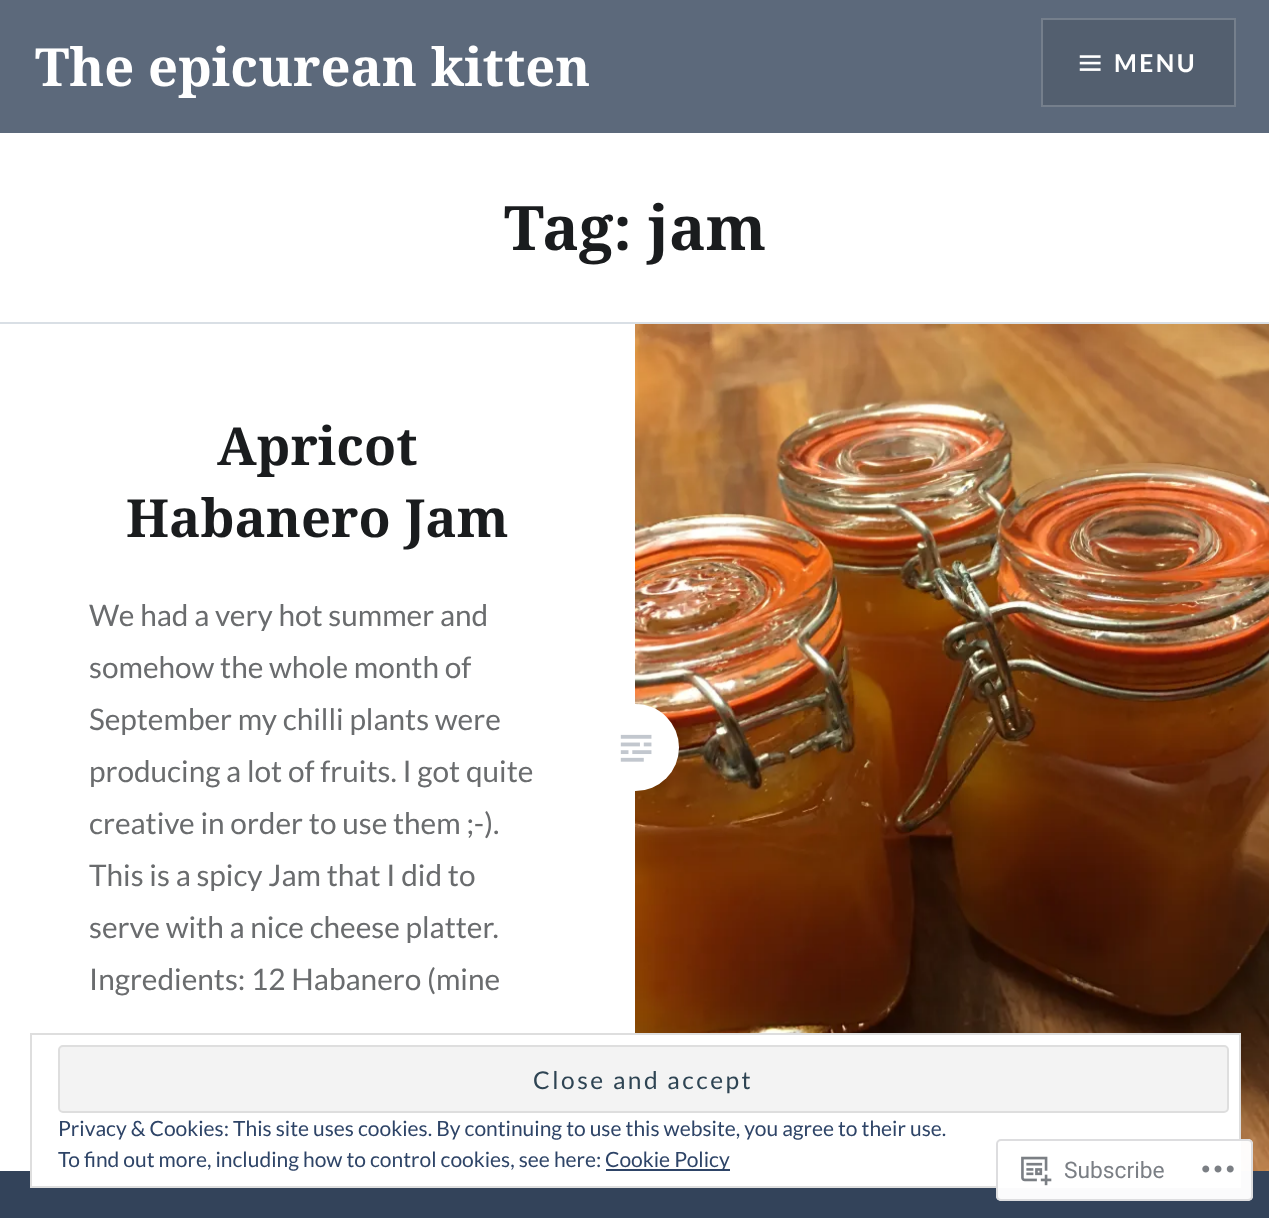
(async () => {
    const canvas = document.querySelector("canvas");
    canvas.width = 1269;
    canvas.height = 1218;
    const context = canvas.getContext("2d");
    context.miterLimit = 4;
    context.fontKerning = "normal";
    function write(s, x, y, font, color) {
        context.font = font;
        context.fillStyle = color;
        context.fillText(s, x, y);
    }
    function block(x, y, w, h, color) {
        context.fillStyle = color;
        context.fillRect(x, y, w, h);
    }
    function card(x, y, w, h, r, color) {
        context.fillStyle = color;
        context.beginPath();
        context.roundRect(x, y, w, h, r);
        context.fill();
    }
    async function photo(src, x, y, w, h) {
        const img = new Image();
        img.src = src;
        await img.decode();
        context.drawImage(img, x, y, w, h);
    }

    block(0, 0, 1269, 1218, "rgb(255, 255, 255)");
    block(0, 0, 1269, 133, "rgb(92, 105, 123)");
    write("The epicurean kitten", 35, 86, "bold 52.5px Noto Serif", "rgb(255, 255, 255)");
    context.fillStyle = "rgb(83, 95, 111)";
    context.beginPath();
    context.rect(1042, 19, 193, 87);
    context.fill();
    context.strokeStyle = "rgb(117, 127, 140)";
    context.lineWidth = 2;
    context.stroke();
    await photo("media/1.png", 1079, 55, 22, 16);
    context.letterSpacing = "2.5px";
    write("MENU", 1114, 72, "bold 24.5px Lato", "rgb(255, 255, 255)");
    block(0, 322, 1269, 2, "rgb(217, 223, 229)");
    context.letterSpacing = "0px";
    write("Tag: jam", 504, 250, "bold 61.25px Noto Serif", "rgb(26, 28, 30)");
    write("Apricot", 217, 465, "bold 52.5px Noto Serif", "rgb(26, 28, 30)");
    write("Habanero Jam", 126, 537, "bold 52.5px Noto Serif", "rgb(26, 28, 30)");
    write("We had a very hot summer and", 89, 626, "29.75px Lato", "rgb(106, 108, 110)");
    write("somehow the whole month of", 89, 678, "29.75px Lato", "rgb(106, 108, 110)");
    write("September my chilli plants were", 89, 730, "29.75px Lato", "rgb(106, 108, 110)");
    write("producing a lot of fruits. I got quite", 89, 782, "29.75px Lato", "rgb(106, 108, 110)");
    write("creative in order to use them ;-).", 89, 834, "29.75px Lato", "rgb(106, 108, 110)");
    write("This is a spicy Jam that I did to", 89, 886, "29.75px Lato", "rgb(106, 108, 110)");
    write("serve with a nice cheese platter.", 89, 938, "29.75px Lato", "rgb(106, 108, 110)");
    write("Ingredients: 12 Habanero (mine", 89, 990, "29.75px Lato", "rgb(106, 108, 110)");
    await photo("media/3.png", 635, 324, 634, 847);
    context.fillStyle = "rgb(255, 255, 255)";
    context.beginPath();
    context.arc(635.5, 747.5, 43.5, 0, Math.PI * 2);
    context.fill();
    await photo("media/2.png", 620, 734, 32, 28);
    block(0, 1171, 1269, 47, "rgb(51, 67, 90)");
    context.fillStyle = "rgb(255, 255, 255)";
    context.beginPath();
    context.rect(31, 1034, 1209, 153);
    context.fill();
    context.strokeStyle = "rgb(222, 222, 222)";
    context.stroke();
    context.fillStyle = "rgb(243, 243, 243)";
    context.beginPath();
    context.roundRect(59, 1046, 1169, 66, 4);
    context.fill();
    context.stroke();
    context.letterSpacing = "2.5px";
    write("Close and accept", 533, 1089, "24.5px Lato", "rgb(46, 68, 83)");
    context.letterSpacing = "0px";
    write("Privacy & Cookies: This site uses cookies. By continuing to use this website, you agree to their use.", 58, 1136, "21px Lato", "rgb(46, 68, 103)");
    write("To find out more, including how to control cookies, see here:", 58, 1167, "21px Lato", "rgb(46, 68, 103)");
    block(606, 1169, 124, 2, "rgb(46, 68, 103)");
    write("Cookie Policy", 605, 1167, "21px Lato", "rgb(46, 68, 103)");
    card(996, 1139, 257, 62, 5, "rgba(255, 255, 255, 0.98)");
    context.beginPath();
    context.roundRect(997, 1140, 255, 60, 4);
    context.strokeStyle = "rgba(220, 220, 222, 0.98)";
    context.stroke();
    await photo("media/4.png", 1021, 1156, 31, 30);
    write("Subscribe", 1064, 1178, "22.75px Roboto", "rgb(123, 127, 133)");
    await photo("media/5.png", 1202, 1165, 32, 8);
})();
